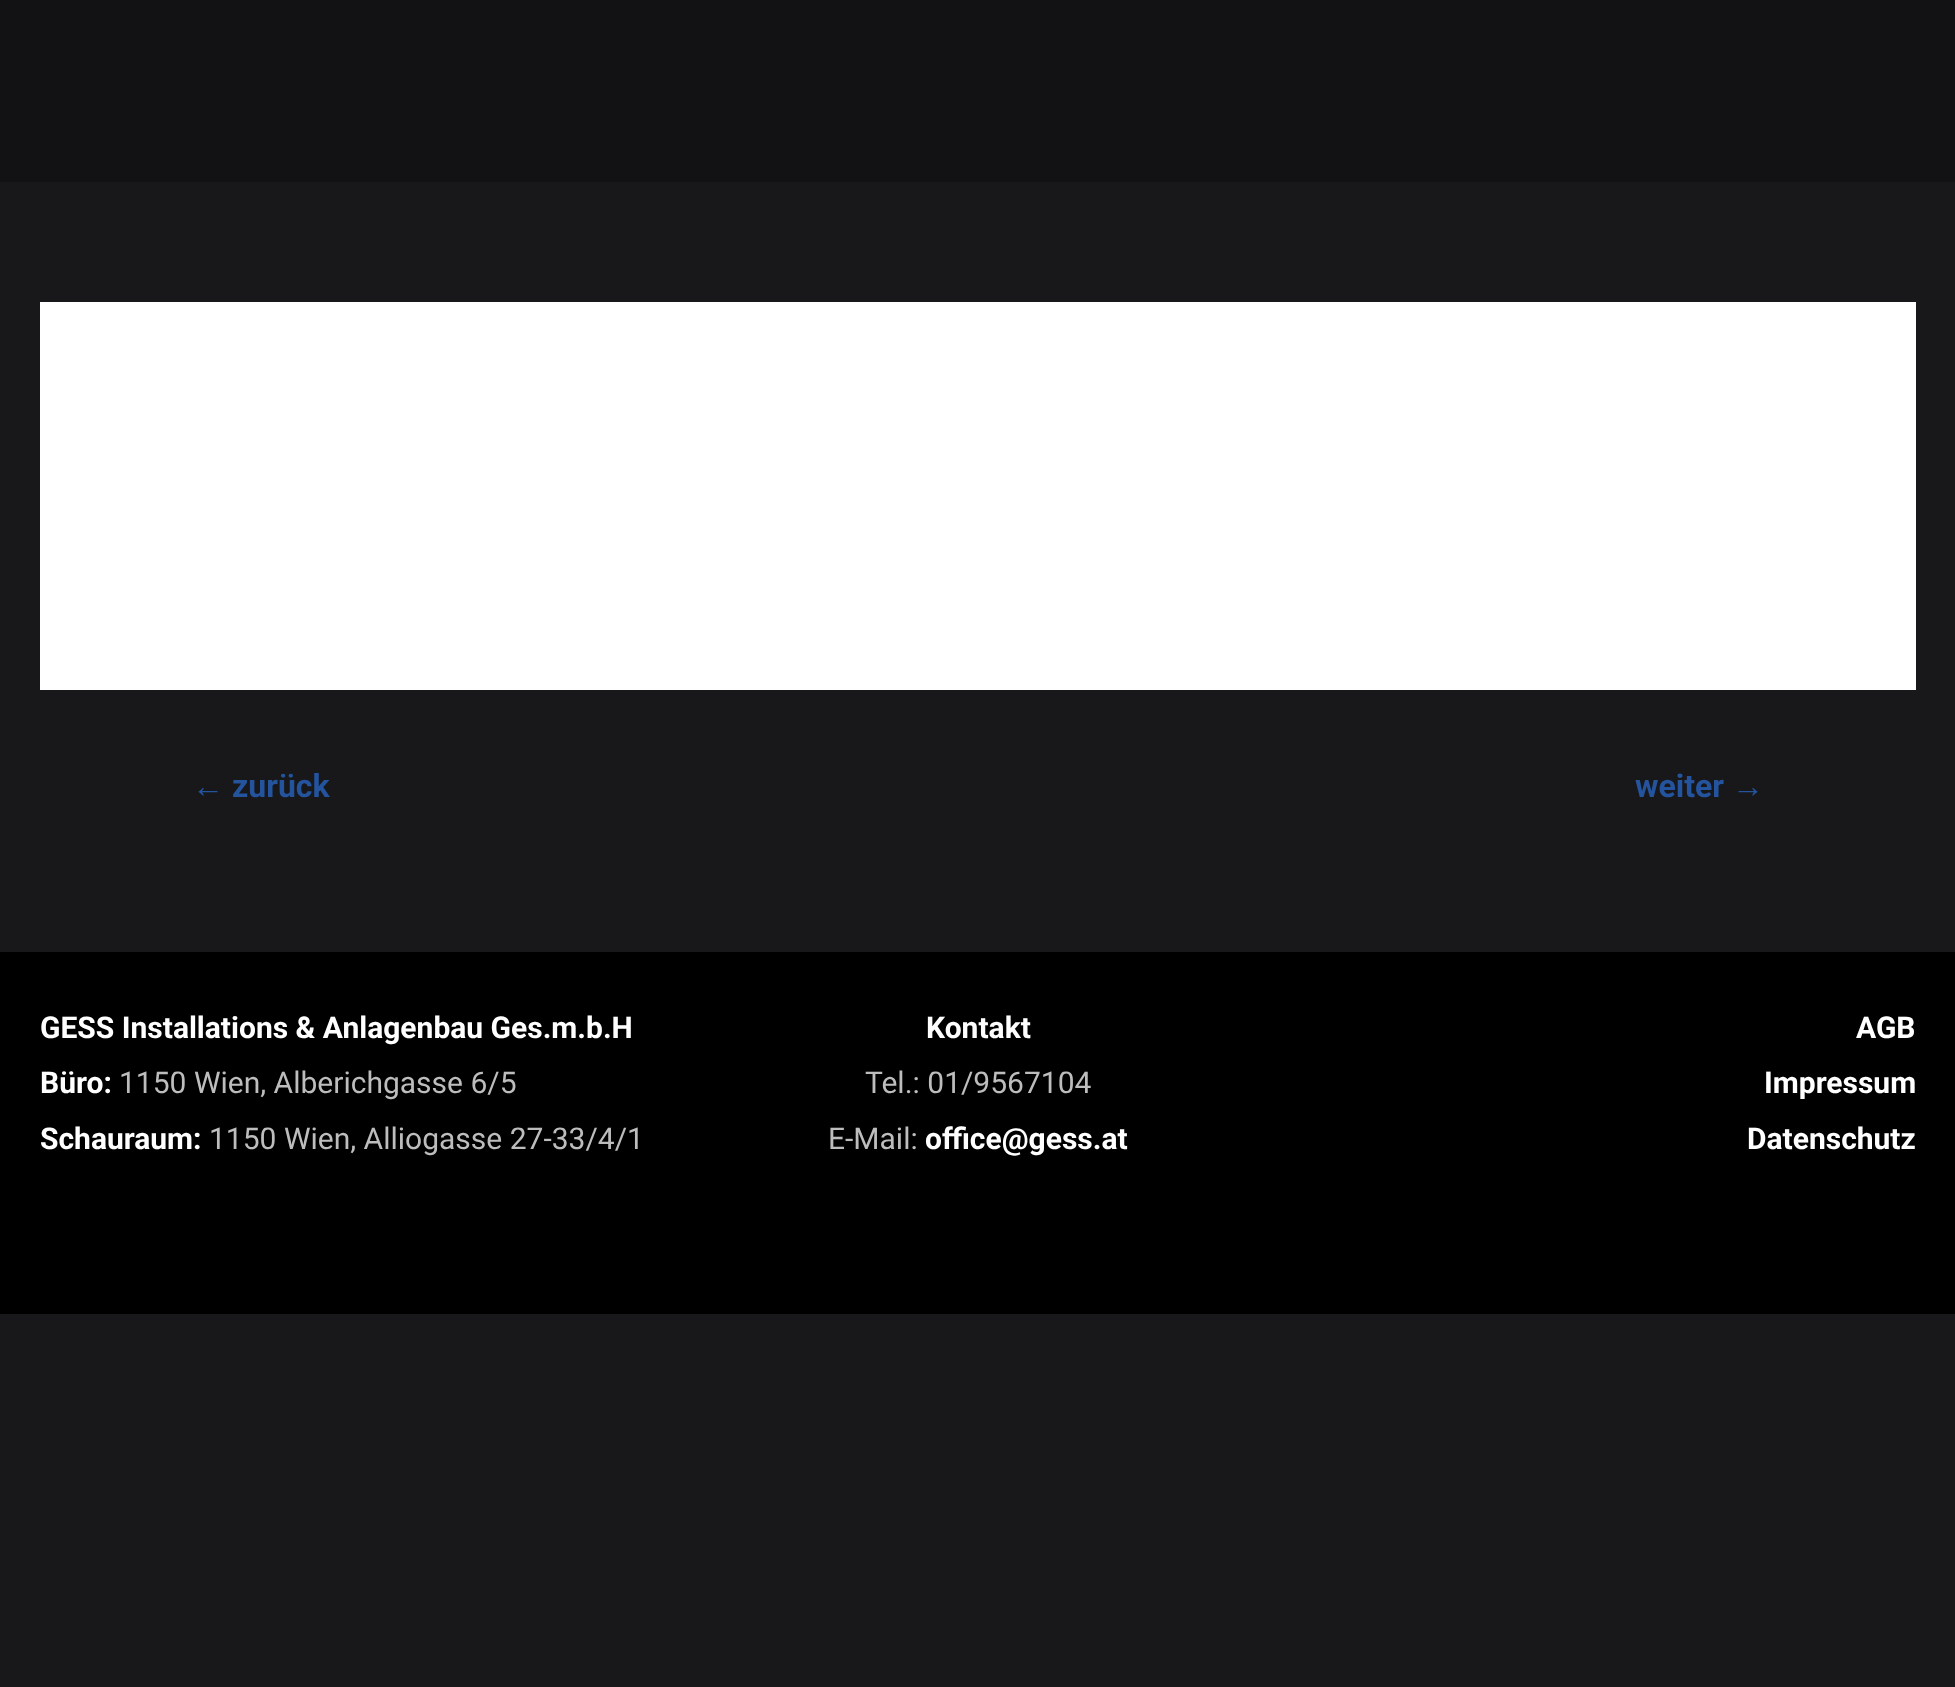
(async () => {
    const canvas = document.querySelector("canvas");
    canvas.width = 1955;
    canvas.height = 1687;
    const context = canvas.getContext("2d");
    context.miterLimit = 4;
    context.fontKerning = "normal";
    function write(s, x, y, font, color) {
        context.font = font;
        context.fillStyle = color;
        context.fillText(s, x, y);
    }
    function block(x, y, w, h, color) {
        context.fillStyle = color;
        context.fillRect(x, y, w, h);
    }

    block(0, 0, 1955, 1687, "rgb(24, 23, 26)");
    block(0, 0, 1955, 182, "rgb(18, 17, 19)");
    block(40, 302, 1876, 388, "rgb(255, 255, 255)");
    write("←", 192, 797, "bold 32px Liberation Sans", "rgb(36, 84, 157)");
    write("zurück", 232, 797, "bold 32px Roboto", "rgb(36, 84, 157)");
    write("weiter", 1635, 797, "bold 32px Roboto", "rgb(36, 84, 157)");
    write("→", 1732, 797, "bold 32px Liberation Sans", "rgb(36, 84, 157)");
    block(0, 952, 1955, 362, "rgb(0, 0, 0)");
    write("GESS Installations & Anlagenbau Ges.m.b.H", 40, 1038, "bold 30px Roboto", "rgb(255, 255, 255)");
    write("Büro:", 40, 1093, "bold 30px Roboto", "rgb(255, 255, 255)");
    write("1150 Wien, Alberichgasse 6/5", 119, 1093, "30px Roboto", "rgb(189, 189, 189)");
    write("Schauraum:", 40, 1149, "bold 30px Roboto", "rgb(255, 255, 255)");
    write("1150 Wien, Alliogasse 27-33/4/1", 209, 1149, "30px Roboto", "rgb(189, 189, 189)");
    write("Kontakt", 926, 1038, "bold 30px Roboto", "rgb(255, 255, 255)");
    write("Tel.: 01/9567104", 865, 1093, "30px Roboto", "rgb(189, 189, 189)");
    write("E-Mail:", 828, 1149, "30px Roboto", "rgb(189, 189, 189)");
    write("office@gess.at", 925, 1149, "bold 30px Roboto", "rgb(255, 255, 255)");
    write("AGB", 1856, 1038, "bold 30px Roboto", "rgb(255, 255, 255)");
    write("Impressum", 1764, 1093, "bold 30px Roboto", "rgb(255, 255, 255)");
    write("Datenschutz", 1747, 1149, "bold 30px Roboto", "rgb(255, 255, 255)");
})();
